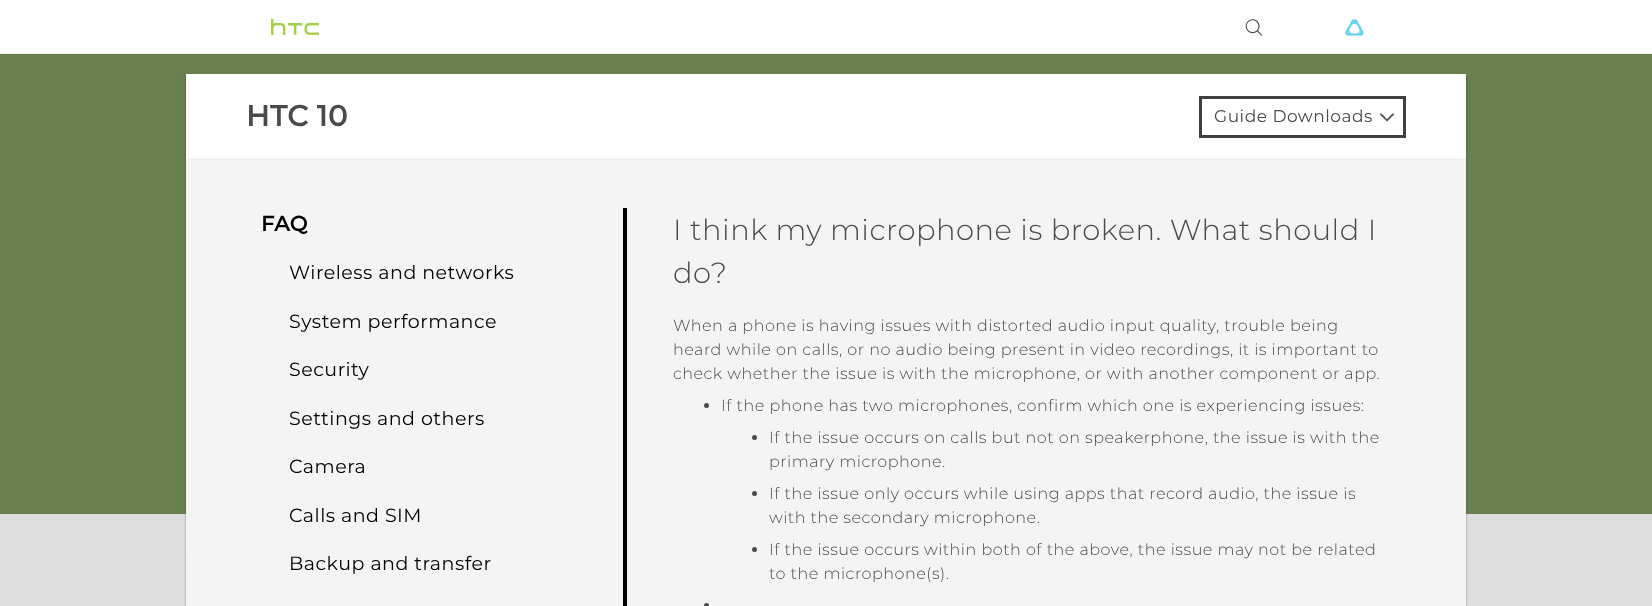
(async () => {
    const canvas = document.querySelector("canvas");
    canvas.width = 1652;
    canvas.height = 606;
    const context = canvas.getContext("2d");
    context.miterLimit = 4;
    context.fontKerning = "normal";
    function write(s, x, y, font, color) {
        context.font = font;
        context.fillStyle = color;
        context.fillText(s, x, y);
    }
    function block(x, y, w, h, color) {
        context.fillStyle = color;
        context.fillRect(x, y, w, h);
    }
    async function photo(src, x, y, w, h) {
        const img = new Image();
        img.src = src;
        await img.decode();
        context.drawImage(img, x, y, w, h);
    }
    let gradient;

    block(0, 0, 1652, 606, "rgb(255, 255, 255)");
    block(0, 53, 1652, 1, "rgb(239, 239, 239)");
    await photo("media/1.png", 271, 19, 48, 16);
    await photo("media/2.png", 1245, 19, 18, 17);
    await photo("media/3.png", 1345, 19, 19, 17);
    gradient = context.createLinearGradient(826, 54, 826, 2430);
    gradient.addColorStop(0, "rgb(218, 218, 218)");
    gradient.addColorStop(0.88, "rgb(236, 236, 236)");
    gradient.addColorStop(1, "rgb(236, 236, 236)");
    context.fillStyle = gradient;
    context.fillRect(0, 514, 1652, 92);
    block(0, 54, 1652, 460, "rgb(104, 128, 79)");
    context.fillStyle = "rgba(0, 0, 0, 0.3)";
    context.filter = "blur(1.5px)";
    context.beginPath();
    context.rect(186, 76, 1280, 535);
    context.fill();
    context.filter = "none";
    block(186, 74, 1280, 84, "rgb(255, 255, 255)");
    context.letterSpacing = "0.5px";
    write("HTC 10", 246, 126, "bold 29px Montserrat", "rgb(74, 74, 74)");
    context.strokeStyle = "rgb(64, 64, 64)";
    context.lineWidth = 3;
    context.strokeRect(1200.5, 97.5, 204, 39);
    write("Guide Downloads", 1214, 122, "17px Montserrat", "rgb(74, 74, 74)");
    await photo("media/4.png", 1379, 113, 16, 9);
    block(186, 158, 1280, 448, "rgb(244, 244, 244)");
    write("FAQ", 261, 231, "bold 21px Montserrat", "rgb(0, 0, 0)");
    write("Wireless and networks", 289, 279, "19px Montserrat", "rgb(0, 0, 0)");
    write("System performance", 289, 328, "19px Montserrat", "rgb(0, 0, 0)");
    write("Security", 289, 376, "19px Montserrat", "rgb(0, 0, 0)");
    write("Settings and others", 289, 425, "19px Montserrat", "rgb(0, 0, 0)");
    write("Camera", 289, 473, "19px Montserrat", "rgb(0, 0, 0)");
    write("Calls and SIM", 289, 522, "19px Montserrat", "rgb(0, 0, 0)");
    write("Backup and transfer", 289, 570, "19px Montserrat", "rgb(0, 0, 0)");
    block(623, 208, 4, 398, "rgb(0, 0, 0)");
    write("I think my microphone is broken. What should I", 673, 240, "300 29px Montserrat", "rgb(74, 74, 74)");
    write("do?", 673, 283, "300 29px Montserrat", "rgb(74, 74, 74)");
    write("When a phone is having issues with distorted audio input quality, trouble being", 673, 331, "300 16px Montserrat", "rgb(74, 74, 74)");
    write("heard while on calls, or no audio being present in video recordings, it is important to", 673, 355, "300 16px Montserrat", "rgb(74, 74, 74)");
    write("check whether the issue is with the microphone, or with another component or app.", 673, 379, "300 16px Montserrat", "rgb(74, 74, 74)");
    context.beginPath();
    context.arc(706.5, 405.5, 2.5, 0, Math.PI * 2);
    context.fill();
    write("If the phone has two microphones, confirm which one is experiencing issues:", 721, 411, "300 16px Montserrat", "rgb(74, 74, 74)");
    context.beginPath();
    context.arc(754.5, 437.5, 2.5, 0, Math.PI * 2);
    context.fill();
    write("If the issue occurs on calls but not on speakerphone, the issue is with the", 769, 443, "300 16px Montserrat", "rgb(74, 74, 74)");
    write("primary microphone.", 769, 467, "300 16px Montserrat", "rgb(74, 74, 74)");
    context.beginPath();
    context.arc(754.5, 493.5, 2.5, 0, Math.PI * 2);
    context.fill();
    write("If the issue only occurs while using apps that record audio, the issue is", 769, 499, "300 16px Montserrat", "rgb(74, 74, 74)");
    write("with the secondary microphone.", 769, 523, "300 16px Montserrat", "rgb(74, 74, 74)");
    context.beginPath();
    context.arc(754.5, 549.5, 2.5, 0, Math.PI * 2);
    context.fill();
    write("If the issue occurs within both of the above, the issue may not be related", 769, 555, "300 16px Montserrat", "rgb(74, 74, 74)");
    write("to the microphone(s).", 769, 579, "300 16px Montserrat", "rgb(74, 74, 74)");
    context.beginPath();
    context.arc(706.5, 605.5, 2.5, 0, Math.PI * 2);
    context.fill();
})();
